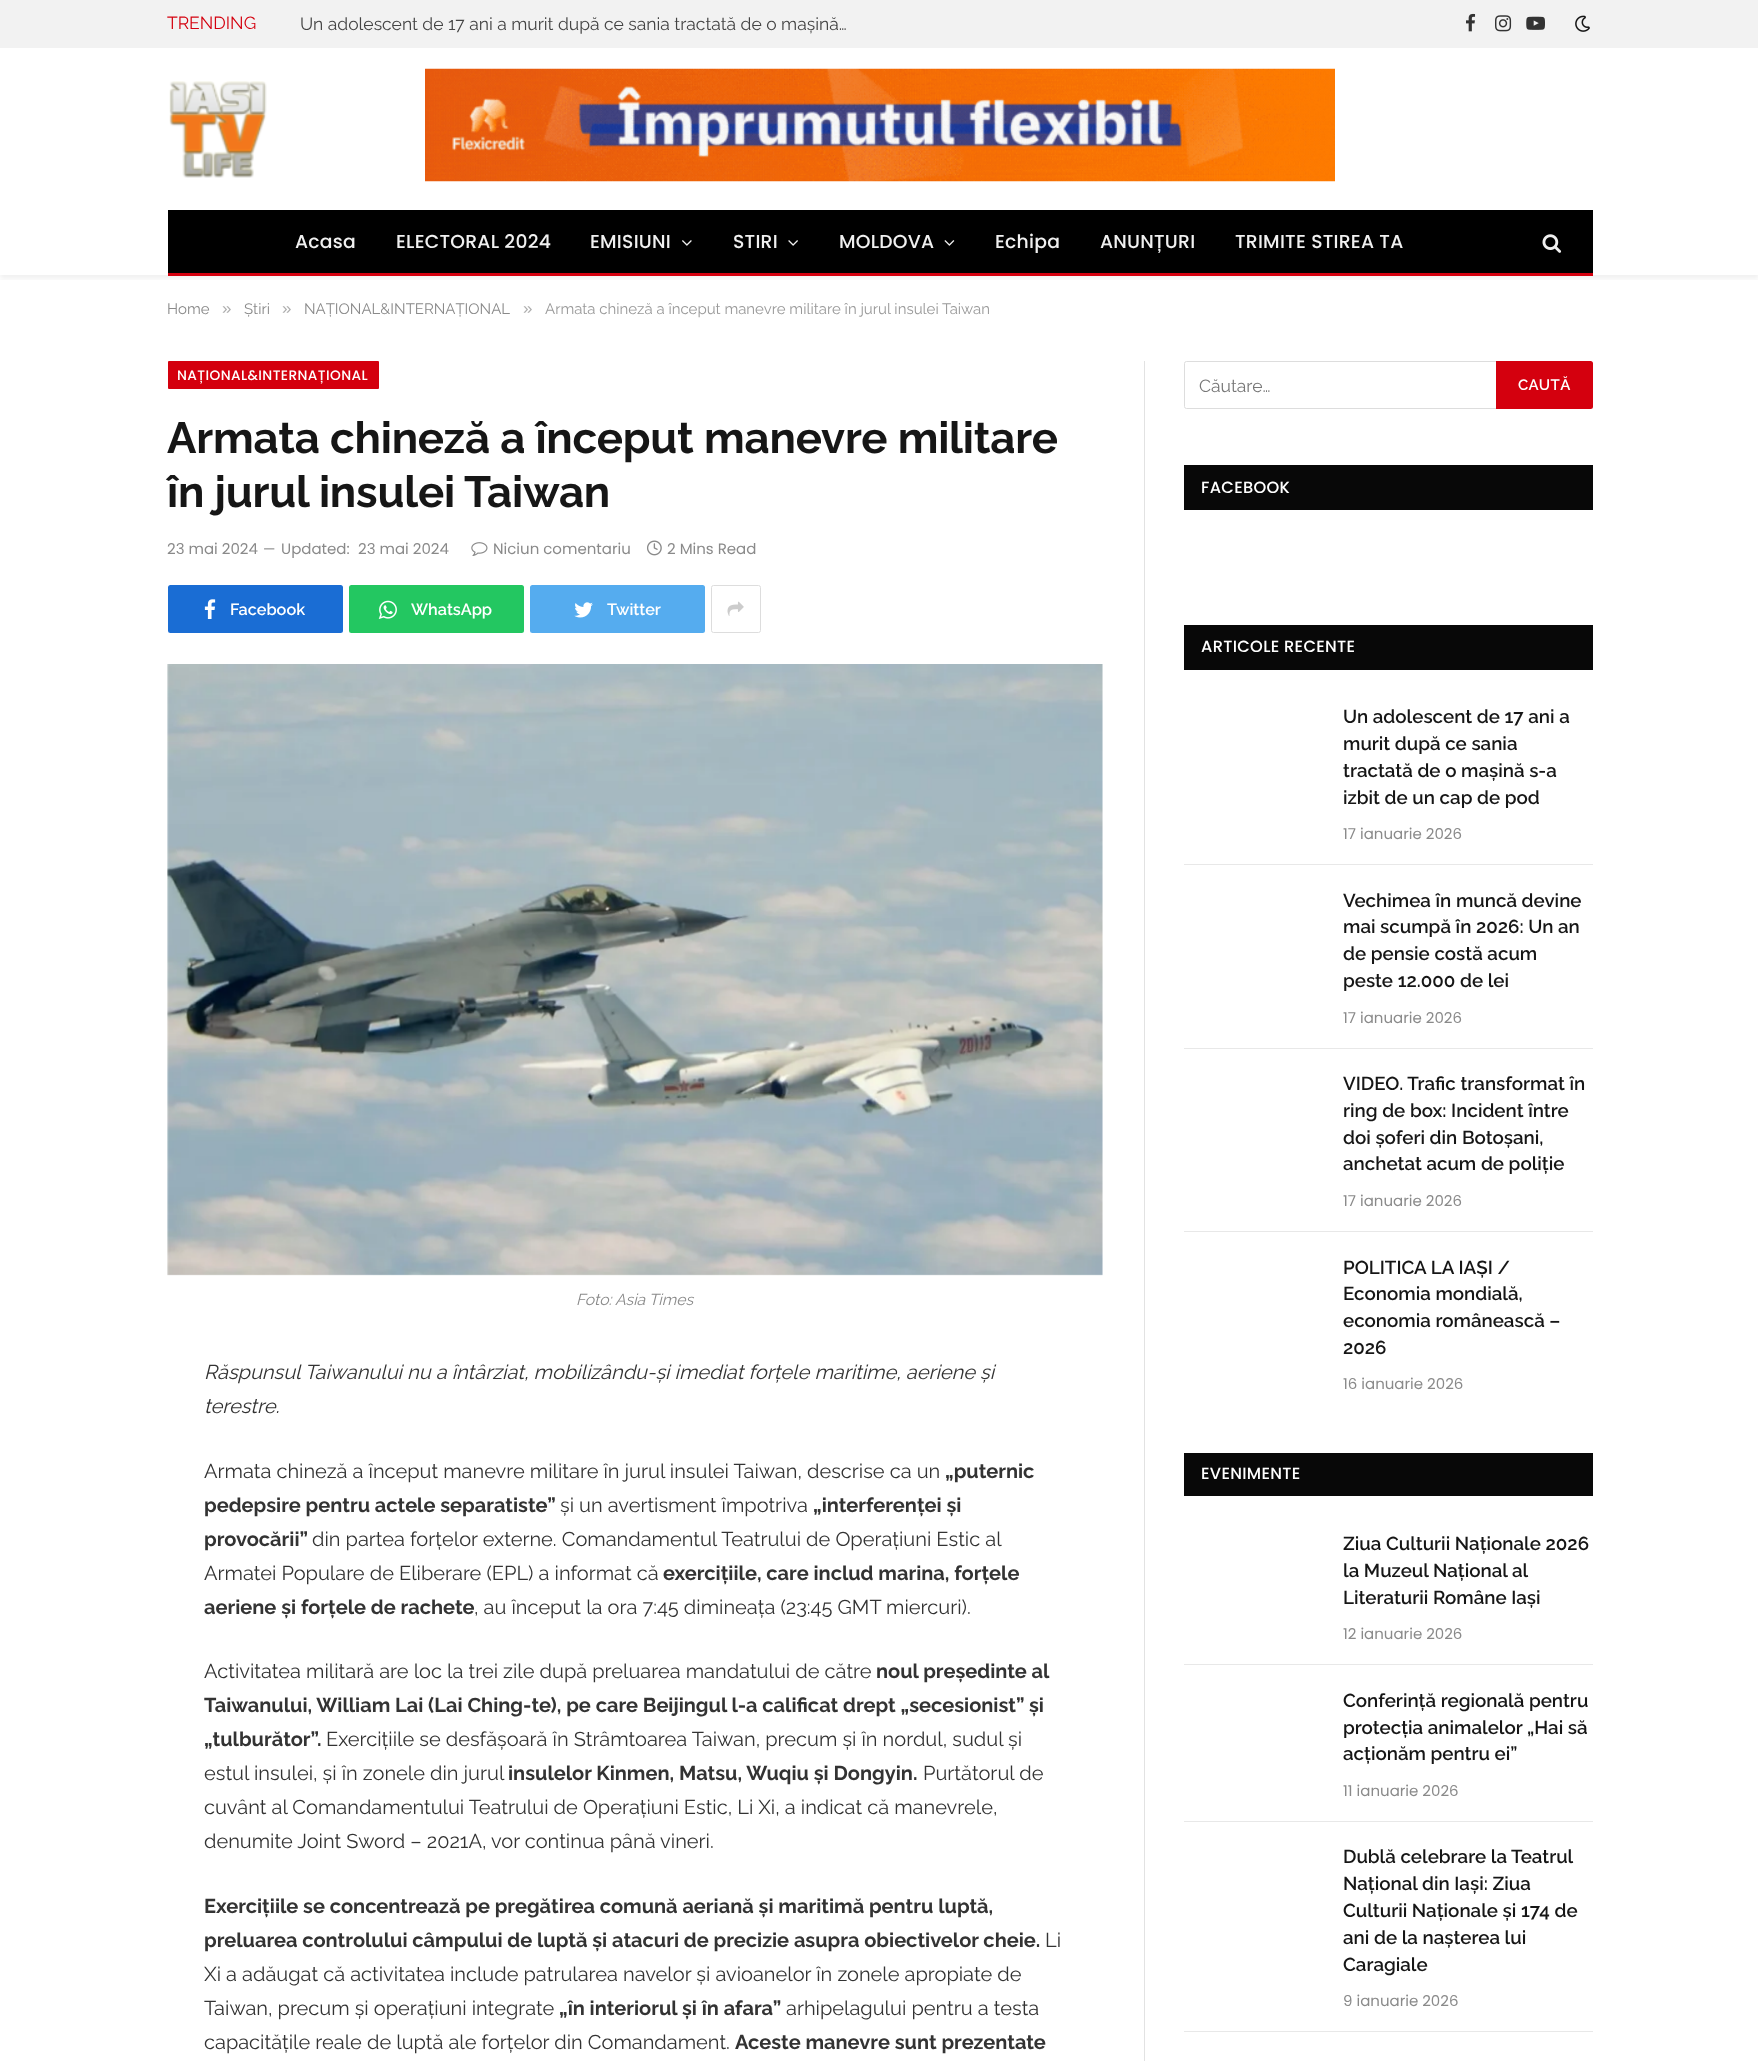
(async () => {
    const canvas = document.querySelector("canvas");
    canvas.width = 1758;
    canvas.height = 2061;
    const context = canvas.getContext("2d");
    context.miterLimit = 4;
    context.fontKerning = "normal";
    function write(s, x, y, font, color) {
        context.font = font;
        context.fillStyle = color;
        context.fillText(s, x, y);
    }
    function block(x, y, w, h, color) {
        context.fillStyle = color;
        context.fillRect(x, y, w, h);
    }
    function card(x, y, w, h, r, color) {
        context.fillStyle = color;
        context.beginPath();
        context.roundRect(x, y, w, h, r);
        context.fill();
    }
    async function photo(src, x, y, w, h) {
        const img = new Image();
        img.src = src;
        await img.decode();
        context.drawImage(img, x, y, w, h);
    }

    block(0, 0, 1758, 2061, "rgb(255, 255, 255)");
    context.save();
    context.beginPath();
    context.rect(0, 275, 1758, 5);
    context.clip();
    context.fillStyle = "rgba(10, 10, 10, 0.06)";
    context.filter = "blur(2.5px)";
    context.beginPath();
    context.rect(0, 4, 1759, 275);
    context.fill();
    context.filter = "none";
    context.restore();
    block(0, 0, 1758, 48, "rgb(242, 242, 242)");
    write("TRENDING", 167, 29, "17.5px Raleway", "rgb(212, 0, 14)");
    write("Un adolescent de 17 ani a murit după ce sania tractată de o mașină…", 300, 30, "17.5px Raleway", "rgb(68, 68, 68)");
    await photo("media/1.png", 1466, 13, 10, 19);
    await photo("media/2.png", 1495, 15, 17, 17);
    await photo("media/3.png", 1526, 16, 19, 14);
    await photo("media/4.png", 1575, 15, 15, 17);
    await photo("media/5.png", 169, 81, 98, 97);
    await photo("media/6.png", 425, 68, 910, 114);
    block(168, 210, 1425, 63, "rgb(0, 0, 0)");
    block(168, 273, 1425, 3, "rgb(212, 0, 14)");
    context.letterSpacing = "0.25px";
    write("Acasa", 295, 248, "500 18.75px Poppins", "rgb(240, 240, 240)");
    write("ELECTORAL 2024", 396, 248, "500 18.75px Poppins", "rgb(240, 240, 240)");
    write("EMISIUNI", 590, 248, "500 18.75px Poppins", "rgb(240, 240, 240)");
    await photo("media/7.png", 682, 240, 10, 6);
    write("STIRI", 733, 248, "500 18.75px Poppins", "rgb(240, 240, 240)");
    await photo("media/8.png", 788, 240, 10, 6);
    write("MOLDOVA", 839, 248, "500 18.75px Poppins", "rgb(240, 240, 240)");
    await photo("media/9.png", 944, 240, 11, 6);
    write("Echipa", 995, 248, "500 18.75px Poppins", "rgb(240, 240, 240)");
    write("ANUNȚURI", 1100, 248, "500 18.75px Poppins", "rgb(240, 240, 240)");
    write("TRIMITE STIREA TA", 1235, 248, "500 18.75px Poppins", "rgb(240, 240, 240)");
    await photo("media/10.png", 1542, 234, 20, 19);
    context.letterSpacing = "0px";
    write("Home", 167, 314, "15px Raleway", "rgb(138, 138, 138)");
    write("»", 222, 314, "17px Liberation Sans", "rgb(173, 173, 173)");
    write("Știri", 244, 314, "15px Raleway", "rgb(138, 138, 138)");
    write("»", 282, 314, "17px Liberation Sans", "rgb(173, 173, 173)");
    write("NAȚIONAL&INTERNAȚIONAL", 304, 314, "15px Raleway", "rgb(138, 138, 138)");
    write("»", 523, 314, "17px Liberation Sans", "rgb(173, 173, 173)");
    write("Armata chineză a început manevre militare în jurul insulei Taiwan", 545, 314, "15px Raleway", "rgb(153, 153, 153)");
    card(168, 361, 211, 28, 1, "rgb(212, 0, 14)");
    context.letterSpacing = "0.4px";
    write("NAȚIONAL&INTERNAȚIONAL", 177, 380, "500 13.75px Poppins", "rgb(255, 255, 255)");
    context.letterSpacing = "-0.2px";
    write("Armata chineză a început manevre militare", 167, 453, "bold 43.75px Raleway", "rgb(22, 22, 22)");
    write("în jurul insulei Taiwan", 167, 507, "bold 43.75px Raleway", "rgb(22, 22, 22)");
    context.letterSpacing = "0px";
    write("23 mai 2024", 167, 554, "15px Poppins", "rgb(138, 138, 138)");
    write("—", 263, 554, "14px Poppins", "rgb(138, 138, 138)");
    write("Updated:", 281, 554, "15px Poppins", "rgb(138, 138, 138)");
    write("23 mai 2024", 358, 554, "15px Poppins", "rgb(138, 138, 138)");
    await photo("media/11.png", 471, 542, 17, 14);
    write("Niciun comentariu", 493, 554, "15px Poppins", "rgb(138, 138, 138)");
    await photo("media/12.png", 647, 540, 15, 16);
    write("2 Mins Read", 667, 554, "15px Poppins", "rgb(138, 138, 138)");
    card(168, 585, 175, 48, 2.5, "rgb(26, 109, 212)");
    await photo("media/13.png", 204, 599, 12, 20);
    write("Facebook", 230, 615, "600 16.25px Raleway", "rgb(255, 255, 255)");
    card(349, 585, 175, 48, 2.5, "rgb(35, 199, 97)");
    await photo("media/14.png", 378, 600, 19, 19);
    write("WhatsApp", 411, 615, "600 16.25px Raleway", "rgb(255, 255, 255)");
    card(530, 585, 175, 48, 2.5, "rgb(85, 172, 239)");
    await photo("media/15.png", 574, 602, 19, 16);
    write("Twitter", 607, 615, "600 16.25px Raleway", "rgb(255, 255, 255)");
    context.beginPath();
    context.roundRect(711.5, 585.5, 49, 47, 2);
    context.strokeStyle = "rgb(221, 221, 221)";
    context.stroke();
    await photo("media/16.png", 727, 601, 17, 15);
    await photo("media/17.png", 167, 664, 936, 612);
    write("Foto: Asia Times", 576, 1305, "italic 15.75px Raleway", "rgb(138, 138, 138)");
    write("Răspunsul Taiwanului nu a întârziat, mobilizându-și imediat forțele maritime, aeriene și", 204, 1379, "italic 20px Raleway", "rgb(51, 51, 51)");
    write("terestre.", 204, 1413, "italic 20px Raleway", "rgb(51, 51, 51)");
    write("Armata chineză a început manevre militare în jurul insulei Taiwan, descrise ca un", 204, 1478, "20px Raleway", "rgb(51, 51, 51)");
    write("„puternic", 945, 1478, "bold 20px Raleway", "rgb(51, 51, 51)");
    write("pedepsire pentru actele separatiste”", 204, 1512, "bold 20px Raleway", "rgb(51, 51, 51)");
    write("și un avertisment împotriva", 560, 1512, "20px Raleway", "rgb(51, 51, 51)");
    write("„interferenței și", 813, 1512, "bold 20px Raleway", "rgb(51, 51, 51)");
    write("provocării”", 204, 1546, "bold 20px Raleway", "rgb(51, 51, 51)");
    write("din partea forțelor externe. Comandamentul Teatrului de Operațiuni Estic al", 312, 1546, "20px Raleway", "rgb(51, 51, 51)");
    write("Armatei Populare de Eliberare (EPL) a informat că", 204, 1580, "20px Raleway", "rgb(51, 51, 51)");
    write("exercițiile, care includ marina, forțele", 663, 1580, "bold 20px Raleway", "rgb(51, 51, 51)");
    write("aeriene și forțele de rachete", 204, 1614, "bold 20px Raleway", "rgb(51, 51, 51)");
    write(", au început la ora 7:45 dimineața (23:45 GMT miercuri).", 474, 1614, "20px Raleway", "rgb(51, 51, 51)");
    write("Activitatea militară are loc la trei zile după preluarea mandatului de către", 204, 1678, "20px Raleway", "rgb(51, 51, 51)");
    write("noul președinte al", 876, 1678, "bold 20px Raleway", "rgb(51, 51, 51)");
    write("Taiwanului, William Lai (Lai Ching-te), pe care Beijingul l-a calificat drept „secesionist” și", 204, 1712, "bold 20px Raleway", "rgb(51, 51, 51)");
    write("„tulburător”.", 204, 1746, "bold 20px Raleway", "rgb(51, 51, 51)");
    write("Exercițiile se desfășoară în Strâmtoarea Taiwan, precum și în nordul, sudul și", 326, 1746, "20px Raleway", "rgb(51, 51, 51)");
    write("estul insulei, și în zonele din jurul", 204, 1780, "20px Raleway", "rgb(51, 51, 51)");
    write("insulelor Kinmen, Matsu, Wuqiu și Dongyin.", 508, 1780, "bold 20px Raleway", "rgb(51, 51, 51)");
    write("Purtătorul de", 923, 1780, "20px Raleway", "rgb(51, 51, 51)");
    write("cuvânt al Comandamentului Teatrului de Operațiuni Estic, Li Xi, a indicat că manevrele,", 204, 1814, "20px Raleway", "rgb(51, 51, 51)");
    write("denumite Joint Sword – 2021A, vor continua până vineri.", 204, 1848, "20px Raleway", "rgb(51, 51, 51)");
    write("Exercițiile se concentrează pe pregătirea comună aeriană și maritimă pentru luptă,", 204, 1913, "bold 20px Raleway", "rgb(51, 51, 51)");
    write("preluarea controlului câmpului de luptă și atacuri de precizie asupra obiectivelor cheie.", 204, 1947, "bold 20px Raleway", "rgb(51, 51, 51)");
    write("Li", 1045, 1947, "20px Raleway", "rgb(51, 51, 51)");
    write("Xi a adăugat că activitatea include patrularea navelor și avioanelor în zonele apropiate de", 204, 1981, "20px Raleway", "rgb(51, 51, 51)");
    write("Taiwan, precum și operațiuni integrate", 204, 2015, "20px Raleway", "rgb(51, 51, 51)");
    write("„în interiorul și în afara”", 559, 2015, "bold 20px Raleway", "rgb(51, 51, 51)");
    write("arhipelagului pentru a testa", 786, 2015, "20px Raleway", "rgb(51, 51, 51)");
    write("capacitățile reale de luptă ale forțelor din Comandament.", 204, 2049, "20px Raleway", "rgb(51, 51, 51)");
    write("Aceste manevre sunt prezentate", 735, 2049, "bold 20px Raleway", "rgb(51, 51, 51)");
    block(1144, 361, 1, 1700, "rgb(226, 226, 226)");
    context.beginPath();
    context.roundRect(1184.5, 361.5, 314, 47, 2);
    context.stroke();
    write("Căutare…", 1199, 392, "17.5px Raleway", "rgb(119, 119, 119)");
    context.fillStyle = "rgb(212, 0, 14)";
    context.beginPath();
    context.roundRect(1496, 361, 97, 48, [0, 2.5, 2.5, 0]);
    context.fill();
    context.letterSpacing = "0.5px";
    write("CAUTĂ", 1518, 390, "600 15px Raleway", "rgb(255, 255, 255)");
    block(1184, 465, 409, 45, "rgb(8, 8, 8)");
    context.letterSpacing = "0.3px";
    write("FACEBOOK", 1201, 493, "500 16.25px Poppins", "rgb(255, 255, 255)");
    block(1184, 625, 409, 45, "rgb(8, 8, 8)");
    write("ARTICOLE RECENTE", 1201, 652, "500 16.25px Poppins", "rgb(255, 255, 255)");
    context.letterSpacing = "0px";
    write("Un adolescent de 17 ani a", 1343, 723, "600 18.75px Raleway", "rgb(22, 22, 22)");
    write("murit după ce sania", 1343, 750, "600 18.75px Raleway", "rgb(22, 22, 22)");
    write("tractată de o mașină s-a", 1343, 777, "600 18.75px Raleway", "rgb(22, 22, 22)");
    write("izbit de un cap de pod", 1343, 804, "600 18.75px Raleway", "rgb(22, 22, 22)");
    write("17 ianuarie 2026", 1343, 839, "15px Poppins", "rgb(138, 138, 138)");
    block(1184, 864, 409, 1, "rgb(232, 232, 232)");
    write("Vechimea în muncă devine", 1343, 907, "600 18.75px Raleway", "rgb(22, 22, 22)");
    write("mai scumpă în 2026: Un an", 1343, 933, "600 18.75px Raleway", "rgb(22, 22, 22)");
    write("de pensie costă acum", 1343, 960, "600 18.75px Raleway", "rgb(22, 22, 22)");
    write("peste 12.000 de lei", 1343, 987, "600 18.75px Raleway", "rgb(22, 22, 22)");
    write("17 ianuarie 2026", 1343, 1023, "15px Poppins", "rgb(138, 138, 138)");
    block(1184, 1048, 409, 1, "rgb(232, 232, 232)");
    write("VIDEO. Trafic transformat în", 1343, 1090, "600 18.75px Raleway", "rgb(22, 22, 22)");
    write("ring de box: Incident între", 1343, 1117, "600 18.75px Raleway", "rgb(22, 22, 22)");
    write("doi șoferi din Botoșani,", 1343, 1144, "600 18.75px Raleway", "rgb(22, 22, 22)");
    write("anchetat acum de poliție", 1343, 1170, "600 18.75px Raleway", "rgb(22, 22, 22)");
    write("17 ianuarie 2026", 1343, 1206, "15px Poppins", "rgb(138, 138, 138)");
    block(1184, 1231, 409, 1, "rgb(232, 232, 232)");
    write("POLITICA LA IAȘI /", 1343, 1274, "600 18.75px Raleway", "rgb(22, 22, 22)");
    write("Economia mondială,", 1343, 1300, "600 18.75px Raleway", "rgb(22, 22, 22)");
    write("economia românească –", 1343, 1327, "600 18.75px Raleway", "rgb(22, 22, 22)");
    write("2026", 1343, 1354, "600 18.75px Raleway", "rgb(22, 22, 22)");
    write("16 ianuarie 2026", 1343, 1389, "15px Poppins", "rgb(138, 138, 138)");
    block(1184, 1453, 409, 43, "rgb(8, 8, 8)");
    context.letterSpacing = "0.3px";
    write("EVENIMENTE", 1201, 1479, "500 16.25px Poppins", "rgb(255, 255, 255)");
    context.letterSpacing = "0px";
    write("Ziua Culturii Naționale 2026", 1343, 1550, "600 18.75px Raleway", "rgb(22, 22, 22)");
    write("la Muzeul Național al", 1343, 1577, "600 18.75px Raleway", "rgb(22, 22, 22)");
    write("Literaturii Române Iași", 1343, 1604, "600 18.75px Raleway", "rgb(22, 22, 22)");
    write("12 ianuarie 2026", 1343, 1639, "15px Poppins", "rgb(138, 138, 138)");
    block(1184, 1664, 409, 1, "rgb(232, 232, 232)");
    write("Conferință regională pentru", 1343, 1707, "600 18.75px Raleway", "rgb(22, 22, 22)");
    write("protecția animalelor „Hai să", 1343, 1734, "600 18.75px Raleway", "rgb(22, 22, 22)");
    write("acționăm pentru ei”", 1343, 1760, "600 18.75px Raleway", "rgb(22, 22, 22)");
    write("11 ianuarie 2026", 1343, 1796, "15px Poppins", "rgb(138, 138, 138)");
    block(1184, 1821, 409, 1, "rgb(232, 232, 232)");
    write("Dublă celebrare la Teatrul", 1343, 1863, "600 18.75px Raleway", "rgb(22, 22, 22)");
    write("Național din Iași: Ziua", 1343, 1890, "600 18.75px Raleway", "rgb(22, 22, 22)");
    write("Culturii Naționale și 174 de", 1343, 1917, "600 18.75px Raleway", "rgb(22, 22, 22)");
    write("ani de la nașterea lui", 1343, 1944, "600 18.75px Raleway", "rgb(22, 22, 22)");
    write("Caragiale", 1343, 1971, "600 18.75px Raleway", "rgb(22, 22, 22)");
    write("9 ianuarie 2026", 1343, 2006, "15px Poppins", "rgb(138, 138, 138)");
    block(1184, 2031, 409, 1, "rgb(232, 232, 232)");
})();
